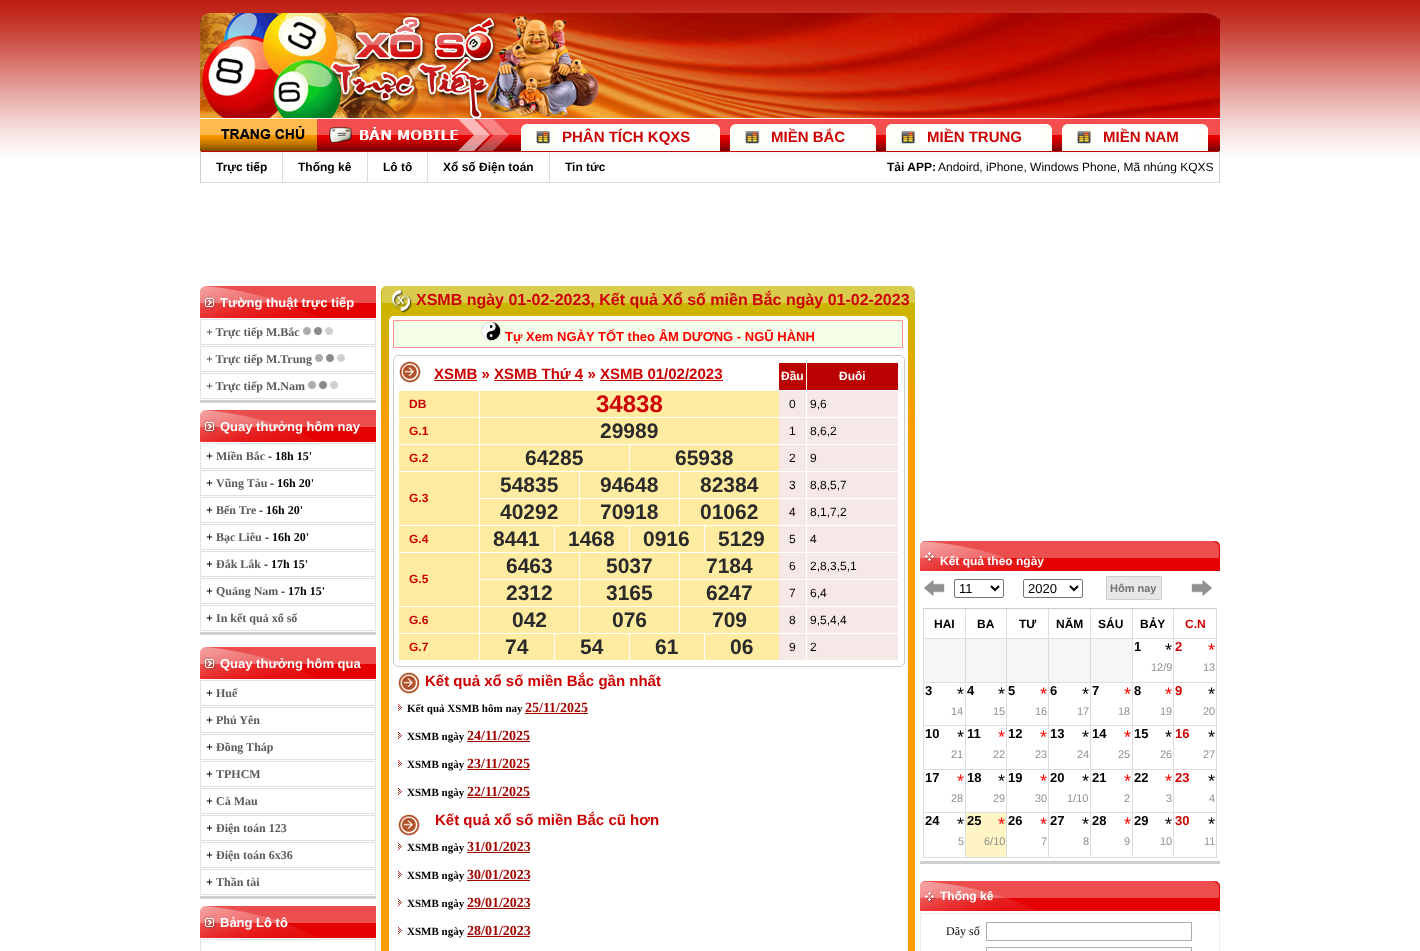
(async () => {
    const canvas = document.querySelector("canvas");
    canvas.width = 1420;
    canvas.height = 951;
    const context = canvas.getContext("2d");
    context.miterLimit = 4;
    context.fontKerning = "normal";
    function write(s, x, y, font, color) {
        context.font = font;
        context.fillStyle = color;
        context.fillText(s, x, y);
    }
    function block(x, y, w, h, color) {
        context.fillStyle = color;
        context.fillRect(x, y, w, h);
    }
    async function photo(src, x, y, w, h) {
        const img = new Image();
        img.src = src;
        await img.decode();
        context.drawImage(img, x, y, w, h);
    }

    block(0, 0, 1420, 951, "rgb(255, 255, 255)");
    await photo("media/1.png", 0, 0, 1420, 156);
    await photo("media/2.png", 200, 13, 1020, 105);
    await photo("media/3.png", 511, 119, 709, 32);
    block(200, 118, 1020, 1, "rgb(255, 255, 255)");
    await photo("media/4.png", 200, 119, 117, 32);
    await photo("media/5.png", 317, 119, 194, 32);
    await photo("media/6.png", 710, 124, 10, 27);
    await photo("media/7.png", 521, 119, 189, 32);
    write("PHÂN TÍCH KQXS", 562, 142, "bold 15px Liberation Sans", "rgb(204, 0, 0)");
    await photo("media/8.png", 866, 124, 10, 27);
    await photo("media/9.png", 730, 119, 136, 32);
    write("MIỀN BẮC", 771, 142, "bold 15px Liberation Sans", "rgb(204, 0, 0)");
    await photo("media/8.png", 1042, 124, 10, 27);
    await photo("media/10.png", 886, 119, 156, 32);
    write("MIỀN TRUNG", 927, 142, "bold 15px Liberation Sans", "rgb(204, 0, 0)");
    await photo("media/6.png", 1198, 124, 10, 27);
    await photo("media/11.png", 1062, 119, 136, 32);
    write("MIỀN NAM", 1103, 142, "bold 15px Liberation Sans", "rgb(204, 0, 0)");
    block(200, 151, 1020, 1, "rgb(200, 5, 5)");
    block(1219, 151, 1, 32, "rgb(204, 204, 204)");
    block(200, 182, 1020, 1, "rgb(221, 221, 221)");
    block(200, 151, 1, 32, "rgb(204, 204, 204)");
    block(282, 152, 1, 30, "rgb(221, 221, 221)");
    write("Trực tiếp", 216, 171, "bold 12px Liberation Sans", "rgb(0, 0, 0)");
    block(367, 152, 1, 30, "rgb(221, 221, 221)");
    write("Thống kê", 298, 171, "bold 12px Liberation Sans", "rgb(0, 0, 0)");
    block(427, 152, 1, 30, "rgb(221, 221, 221)");
    write("Lô tô", 383, 171, "bold 12px Liberation Sans", "rgb(0, 0, 0)");
    block(549, 152, 1, 30, "rgb(221, 221, 221)");
    write("Xổ số Điện toán", 443, 171, "bold 12px Liberation Sans", "rgb(0, 0, 0)");
    write("Tin tức", 565, 171, "bold 12px Liberation Sans", "rgb(0, 0, 0)");
    write("Tải APP:", 887, 171, "bold 12px Liberation Sans", "rgb(0, 0, 0)");
    write("Andoird, iPhone, Windows Phone, Mã nhúng KQXS", 938, 171, "12px Liberation Sans", "rgb(0, 0, 0)");
    block(200, 400, 176, 3, "rgb(208, 208, 208)");
    await photo("media/12.png", 200, 286, 176, 32);
    write("Tường thuật trực tiếp", 220, 307, "bold 13px Liberation Sans", "rgb(255, 255, 255)");
    context.strokeStyle = "rgb(225, 225, 225)";
    context.strokeRect(200.5, 319.5, 175, 25);
    write("+ Trực tiếp M.Bắc", 206, 336, "bold 12px Liberation Serif", "rgb(90, 90, 90)");
    await photo("media/13.png", 303, 327, 30, 8);
    context.strokeRect(200.5, 346.5, 175, 25);
    write("+ Trực tiếp M.Trung", 206, 363, "bold 12px Liberation Serif", "rgb(90, 90, 90)");
    await photo("media/13.png", 315, 354, 30, 8);
    context.strokeRect(200.5, 373.5, 175, 25);
    write("+ Trực tiếp M.Nam", 206, 390, "bold 12px Liberation Serif", "rgb(90, 90, 90)");
    await photo("media/13.png", 308, 381, 30, 8);
    block(200, 632, 176, 3, "rgb(208, 208, 208)");
    await photo("media/12.png", 200, 410, 176, 32);
    write("Quay thưởng hôm nay", 220, 431, "bold 13px Liberation Sans", "rgb(255, 255, 255)");
    context.strokeRect(200.5, 443.5, 175, 25);
    write("+", 206, 460, "bold 12px Liberation Serif", "rgb(0, 0, 0)");
    write("Miền Bắc", 216, 460, "bold 12px Liberation Serif", "rgb(90, 90, 90)");
    write("- 18h 15'", 268, 460, "bold 12px Liberation Serif", "rgb(0, 0, 0)");
    context.strokeRect(200.5, 470.5, 175, 25);
    write("+", 206, 487, "bold 12px Liberation Serif", "rgb(0, 0, 0)");
    write("Vũng Tàu", 216, 487, "bold 12px Liberation Serif", "rgb(90, 90, 90)");
    write("- 16h 20'", 270, 487, "bold 12px Liberation Serif", "rgb(0, 0, 0)");
    context.strokeRect(200.5, 497.5, 175, 25);
    write("+", 206, 514, "bold 12px Liberation Serif", "rgb(0, 0, 0)");
    write("Bến Tre", 216, 514, "bold 12px Liberation Serif", "rgb(90, 90, 90)");
    write("- 16h 20'", 259, 514, "bold 12px Liberation Serif", "rgb(0, 0, 0)");
    context.strokeRect(200.5, 524.5, 175, 25);
    write("+", 206, 541, "bold 12px Liberation Serif", "rgb(0, 0, 0)");
    write("Bạc Liêu", 216, 541, "bold 12px Liberation Serif", "rgb(90, 90, 90)");
    write("- 16h 20'", 265, 541, "bold 12px Liberation Serif", "rgb(0, 0, 0)");
    context.strokeRect(200.5, 551.5, 175, 25);
    write("+", 206, 568, "bold 12px Liberation Serif", "rgb(0, 0, 0)");
    write("Đắk Lắk", 216, 568, "bold 12px Liberation Serif", "rgb(90, 90, 90)");
    write("- 17h 15'", 264, 568, "bold 12px Liberation Serif", "rgb(0, 0, 0)");
    context.strokeRect(200.5, 578.5, 175, 25);
    write("+", 206, 595, "bold 12px Liberation Serif", "rgb(0, 0, 0)");
    write("Quảng Nam", 216, 595, "bold 12px Liberation Serif", "rgb(90, 90, 90)");
    write("- 17h 15'", 281, 595, "bold 12px Liberation Serif", "rgb(0, 0, 0)");
    context.strokeRect(200.5, 605.5, 175, 25);
    write("+", 206, 622, "bold 12px Liberation Serif", "rgb(0, 0, 0)");
    write("In kết quả xổ số", 216, 622, "bold 12px Liberation Serif", "rgb(90, 90, 90)");
    block(200, 896, 176, 3, "rgb(208, 208, 208)");
    await photo("media/12.png", 200, 647, 176, 32);
    write("Quay thưởng hôm qua", 220, 668, "bold 13px Liberation Sans", "rgb(255, 255, 255)");
    context.strokeRect(200.5, 680.5, 175, 25);
    write("+", 206, 697, "bold 12px Liberation Serif", "rgb(0, 0, 0)");
    write("Huế", 216, 697, "bold 12px Liberation Serif", "rgb(90, 90, 90)");
    context.strokeRect(200.5, 707.5, 175, 25);
    write("+", 206, 724, "bold 12px Liberation Serif", "rgb(0, 0, 0)");
    write("Phú Yên", 216, 724, "bold 12px Liberation Serif", "rgb(90, 90, 90)");
    context.strokeRect(200.5, 734.5, 175, 25);
    write("+", 206, 751, "bold 12px Liberation Serif", "rgb(0, 0, 0)");
    write("Đồng Tháp", 216, 751, "bold 12px Liberation Serif", "rgb(90, 90, 90)");
    context.strokeRect(200.5, 761.5, 175, 25);
    write("+", 206, 778, "bold 12px Liberation Serif", "rgb(0, 0, 0)");
    write("TPHCM", 216, 778, "bold 12px Liberation Serif", "rgb(90, 90, 90)");
    context.strokeRect(200.5, 788.5, 175, 25);
    write("+", 206, 805, "bold 12px Liberation Serif", "rgb(0, 0, 0)");
    write("Cà Mau", 216, 805, "bold 12px Liberation Serif", "rgb(90, 90, 90)");
    context.strokeRect(200.5, 815.5, 175, 25);
    write("+", 206, 832, "bold 12px Liberation Serif", "rgb(0, 0, 0)");
    write("Điện toán 123", 216, 832, "bold 12px Liberation Serif", "rgb(90, 90, 90)");
    context.strokeRect(200.5, 842.5, 175, 25);
    write("+", 206, 859, "bold 12px Liberation Serif", "rgb(0, 0, 0)");
    write("Điện toán 6x36", 216, 859, "bold 12px Liberation Serif", "rgb(90, 90, 90)");
    context.strokeRect(200.5, 869.5, 175, 25);
    write("+", 206, 886, "bold 12px Liberation Serif", "rgb(0, 0, 0)");
    write("Thần tài", 216, 886, "bold 12px Liberation Serif", "rgb(90, 90, 90)");
    await photo("media/12.png", 200, 906, 176, 32);
    write("Bảng Lô tô", 220, 927, "bold 13px Liberation Sans", "rgb(255, 255, 255)");
    context.strokeRect(200.5, 939.5, 175, 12);
    await photo("media/14.png", 381, 440, 534, 511);
    await photo("media/15.png", 412, 286, 491, 154);
    await photo("media/16.png", 381, 286, 31, 154);
    await photo("media/17.png", 903, 286, 12, 154);
    write("XSMB ngày 01-02-2023, Kết quả Xổ số miền Bắc ngày 01-02-2023", 416, 305, "bold 16px Liberation Sans", "rgb(204, 0, 0)");
    context.fillStyle = "rgb(245, 255, 233)";
    context.beginPath();
    context.rect(393.5, 320.5, 509, 27);
    context.fill();
    context.strokeStyle = "rgb(255, 144, 141)";
    context.stroke();
    await photo("media/18.png", 481, 321, 20, 20);
    write("Tự Xem NGÀY TỐT theo ÂM DƯƠNG - NGŨ HÀNH", 505, 341, "bold 13px Liberation Sans", "rgb(255, 0, 0)");
    context.beginPath();
    context.roundRect(393.5, 355.5, 511, 311, 4.5);
    context.strokeStyle = "rgb(204, 204, 204)";
    context.stroke();
    await photo("media/19.png", 399, 361, 22, 22);
    write("XSMB » XSMB Thứ 4 » XSMB 01/02/2023", 434, 379, "bold 15px Liberation Sans", "rgb(204, 0, 0)");
    block(434, 380, 43, 1, "rgb(204, 0, 0)");
    block(494, 380, 89, 1, "rgb(204, 0, 0)");
    block(600, 380, 123, 1, "rgb(204, 0, 0)");
    block(399, 391, 80, 269, "rgb(255, 236, 160)");
    block(399, 417, 80, 1, "rgb(255, 255, 255)");
    write("DB", 409, 408, "bold 12px Liberation Sans", "rgb(204, 0, 0)");
    block(399, 444, 80, 1, "rgb(255, 255, 255)");
    write("G.1", 409, 435, "bold 12px Liberation Sans", "rgb(204, 0, 0)");
    block(399, 471, 80, 1, "rgb(255, 255, 255)");
    write("G.2", 409, 462, "bold 12px Liberation Sans", "rgb(204, 0, 0)");
    block(399, 525, 80, 1, "rgb(255, 255, 255)");
    write("G.3", 409, 502, "bold 12px Liberation Sans", "rgb(204, 0, 0)");
    block(399, 552, 80, 1, "rgb(255, 255, 255)");
    write("G.4", 409, 543, "bold 12px Liberation Sans", "rgb(204, 0, 0)");
    block(399, 606, 80, 1, "rgb(255, 255, 255)");
    write("G.5", 409, 583, "bold 12px Liberation Sans", "rgb(204, 0, 0)");
    block(399, 633, 80, 1, "rgb(255, 255, 255)");
    write("G.6", 409, 624, "bold 12px Liberation Sans", "rgb(204, 0, 0)");
    write("G.7", 409, 651, "bold 12px Liberation Sans", "rgb(204, 0, 0)");
    block(480, 391, 299, 269, "rgb(255, 236, 160)");
    block(479, 417, 300, 1, "rgb(255, 255, 255)");
    write("34838", 596, 412, "bold 24px Liberation Sans", "rgb(204, 0, 0)");
    block(479, 444, 300, 1, "rgb(255, 255, 255)");
    write("29989", 600, 438, "bold 21px Liberation Sans", "rgb(42, 42, 42)");
    block(479, 471, 300, 1, "rgb(255, 255, 255)");
    write("64285", 525, 465, "bold 21px Liberation Sans", "rgb(42, 42, 42)");
    block(629, 445, 1, 26, "rgb(255, 255, 255)");
    write("65938", 675, 465, "bold 21px Liberation Sans", "rgb(42, 42, 42)");
    block(479, 525, 300, 1, "rgb(255, 255, 255)");
    block(479, 498, 300, 1, "rgb(255, 255, 255)");
    write("54835", 500, 492, "bold 21px Liberation Sans", "rgb(42, 42, 42)");
    block(579, 472, 1, 54, "rgb(255, 255, 255)");
    write("94648", 600, 492, "bold 21px Liberation Sans", "rgb(42, 42, 42)");
    block(679, 472, 1, 54, "rgb(255, 255, 255)");
    write("82384", 700, 492, "bold 21px Liberation Sans", "rgb(42, 42, 42)");
    write("40292", 500, 519, "bold 21px Liberation Sans", "rgb(42, 42, 42)");
    write("70918", 600, 519, "bold 21px Liberation Sans", "rgb(42, 42, 42)");
    write("01062", 700, 519, "bold 21px Liberation Sans", "rgb(42, 42, 42)");
    block(479, 552, 300, 1, "rgb(255, 255, 255)");
    write("8441", 493, 546, "bold 21px Liberation Sans", "rgb(42, 42, 42)");
    block(554, 526, 1, 26, "rgb(255, 255, 255)");
    write("1468", 568, 546, "bold 21px Liberation Sans", "rgb(42, 42, 42)");
    block(629, 526, 1, 26, "rgb(255, 255, 255)");
    write("0916", 643, 546, "bold 21px Liberation Sans", "rgb(42, 42, 42)");
    block(704, 526, 1, 26, "rgb(255, 255, 255)");
    write("5129", 718, 546, "bold 21px Liberation Sans", "rgb(42, 42, 42)");
    block(479, 606, 300, 1, "rgb(255, 255, 255)");
    block(479, 579, 300, 1, "rgb(255, 255, 255)");
    write("6463", 506, 573, "bold 21px Liberation Sans", "rgb(42, 42, 42)");
    block(579, 553, 1, 80, "rgb(255, 255, 255)");
    write("5037", 606, 573, "bold 21px Liberation Sans", "rgb(42, 42, 42)");
    block(679, 553, 1, 80, "rgb(255, 255, 255)");
    write("7184", 706, 573, "bold 21px Liberation Sans", "rgb(42, 42, 42)");
    write("2312", 506, 600, "bold 21px Liberation Sans", "rgb(42, 42, 42)");
    write("3165", 606, 600, "bold 21px Liberation Sans", "rgb(42, 42, 42)");
    write("6247", 706, 600, "bold 21px Liberation Sans", "rgb(42, 42, 42)");
    block(479, 633, 300, 1, "rgb(255, 255, 255)");
    write("042", 512, 627, "bold 21px Liberation Sans", "rgb(42, 42, 42)");
    write("076", 612, 627, "bold 21px Liberation Sans", "rgb(42, 42, 42)");
    write("709", 712, 627, "bold 21px Liberation Sans", "rgb(42, 42, 42)");
    write("74", 505, 654, "bold 21px Liberation Sans", "rgb(42, 42, 42)");
    block(554, 634, 1, 26, "rgb(255, 255, 255)");
    write("54", 580, 654, "bold 21px Liberation Sans", "rgb(42, 42, 42)");
    block(629, 634, 1, 26, "rgb(255, 255, 255)");
    write("61", 655, 654, "bold 21px Liberation Sans", "rgb(42, 42, 42)");
    block(704, 634, 1, 26, "rgb(255, 255, 255)");
    write("06", 730, 654, "bold 21px Liberation Sans", "rgb(42, 42, 42)");
    block(779, 363, 27, 27, "rgb(186, 0, 0)");
    write("Đầu", 781, 380, "bold 12px Liberation Sans", "rgb(255, 255, 255)");
    block(807, 363, 91, 27, "rgb(186, 0, 0)");
    write("Đuôi", 839, 380, "bold 12px Liberation Sans", "rgb(255, 255, 255)");
    block(779, 391, 27, 26, "rgb(247, 232, 232)");
    write("0", 789, 408, "12px Liberation Sans", "rgb(0, 0, 0)");
    block(807, 391, 91, 26, "rgb(247, 232, 232)");
    write("9,6", 810, 408, "12px Liberation Sans", "rgb(0, 0, 0)");
    block(779, 418, 27, 26, "rgb(247, 232, 232)");
    write("1", 789, 435, "12px Liberation Sans", "rgb(0, 0, 0)");
    block(807, 418, 91, 26, "rgb(247, 232, 232)");
    write("8,6,2", 810, 435, "12px Liberation Sans", "rgb(0, 0, 0)");
    block(779, 445, 27, 26, "rgb(247, 232, 232)");
    write("2", 789, 462, "12px Liberation Sans", "rgb(0, 0, 0)");
    block(807, 445, 91, 26, "rgb(247, 232, 232)");
    write("9", 810, 462, "12px Liberation Sans", "rgb(0, 0, 0)");
    block(779, 472, 27, 26, "rgb(247, 232, 232)");
    write("3", 789, 489, "12px Liberation Sans", "rgb(0, 0, 0)");
    block(807, 472, 91, 26, "rgb(247, 232, 232)");
    write("8,8,5,7", 810, 489, "12px Liberation Sans", "rgb(0, 0, 0)");
    block(779, 499, 27, 26, "rgb(247, 232, 232)");
    write("4", 789, 516, "12px Liberation Sans", "rgb(0, 0, 0)");
    block(807, 499, 91, 26, "rgb(247, 232, 232)");
    write("8,1,7,2", 810, 516, "12px Liberation Sans", "rgb(0, 0, 0)");
    block(779, 526, 27, 26, "rgb(247, 232, 232)");
    write("5", 789, 543, "12px Liberation Sans", "rgb(0, 0, 0)");
    block(807, 526, 91, 26, "rgb(247, 232, 232)");
    write("4", 810, 543, "12px Liberation Sans", "rgb(0, 0, 0)");
    block(779, 553, 27, 26, "rgb(247, 232, 232)");
    write("6", 789, 570, "12px Liberation Sans", "rgb(0, 0, 0)");
    block(807, 553, 91, 26, "rgb(247, 232, 232)");
    write("2,8,3,5,1", 810, 570, "12px Liberation Sans", "rgb(0, 0, 0)");
    block(779, 580, 27, 26, "rgb(247, 232, 232)");
    write("7", 789, 597, "12px Liberation Sans", "rgb(0, 0, 0)");
    block(807, 580, 91, 26, "rgb(247, 232, 232)");
    write("6,4", 810, 597, "12px Liberation Sans", "rgb(0, 0, 0)");
    block(779, 607, 27, 26, "rgb(247, 232, 232)");
    write("8", 789, 624, "12px Liberation Sans", "rgb(0, 0, 0)");
    block(807, 607, 91, 26, "rgb(247, 232, 232)");
    write("9,5,4,4", 810, 624, "12px Liberation Sans", "rgb(0, 0, 0)");
    block(779, 634, 27, 26, "rgb(247, 232, 232)");
    write("9", 789, 651, "12px Liberation Sans", "rgb(0, 0, 0)");
    block(807, 634, 91, 26, "rgb(247, 232, 232)");
    write("2", 810, 651, "12px Liberation Sans", "rgb(0, 0, 0)");
    await photo("media/19.png", 398, 672, 22, 22);
    write("Kết quả xổ số miền Bắc gần nhất", 425, 686, "bold 15px Liberation Sans", "rgb(204, 0, 0)");
    await photo("media/20.png", 398, 704, 4, 7);
    write("Kết quả XSMB hôm nay", 407, 712, "bold 11px Liberation Serif", "rgb(0, 0, 0)");
    write("25/11/2025", 525, 712, "bold 14px Liberation Serif", "rgb(160, 5, 0)");
    block(525, 713, 63, 1, "rgb(160, 5, 0)");
    await photo("media/20.png", 398, 732, 4, 7);
    write("XSMB ngày", 407, 740, "bold 11px Liberation Serif", "rgb(0, 0, 0)");
    write("24/11/2025", 467, 740, "bold 14px Liberation Serif", "rgb(160, 5, 0)");
    block(467, 741, 63, 1, "rgb(160, 5, 0)");
    await photo("media/20.png", 398, 760, 4, 7);
    write("XSMB ngày", 407, 768, "bold 11px Liberation Serif", "rgb(0, 0, 0)");
    write("23/11/2025", 467, 768, "bold 14px Liberation Serif", "rgb(160, 5, 0)");
    block(467, 769, 63, 1, "rgb(160, 5, 0)");
    await photo("media/20.png", 398, 788, 4, 7);
    write("XSMB ngày", 407, 796, "bold 11px Liberation Serif", "rgb(0, 0, 0)");
    write("22/11/2025", 467, 796, "bold 14px Liberation Serif", "rgb(160, 5, 0)");
    block(467, 797, 63, 1, "rgb(160, 5, 0)");
    await photo("media/19.png", 398, 814, 22, 22);
    write("Kết quả xổ số miền Bắc cũ hơn", 435, 825, "bold 15px Liberation Sans", "rgb(204, 0, 0)");
    await photo("media/20.png", 398, 843, 4, 7);
    write("XSMB ngày", 407, 851, "bold 11px Liberation Serif", "rgb(0, 0, 0)");
    write("31/01/2023", 467, 851, "bold 14px Liberation Serif", "rgb(160, 5, 0)");
    block(467, 852, 63, 1, "rgb(160, 5, 0)");
    await photo("media/20.png", 398, 871, 4, 7);
    write("XSMB ngày", 407, 879, "bold 11px Liberation Serif", "rgb(0, 0, 0)");
    write("30/01/2023", 467, 879, "bold 14px Liberation Serif", "rgb(160, 5, 0)");
    block(467, 880, 63, 1, "rgb(160, 5, 0)");
    await photo("media/20.png", 398, 899, 4, 7);
    write("XSMB ngày", 407, 907, "bold 11px Liberation Serif", "rgb(0, 0, 0)");
    write("29/01/2023", 467, 907, "bold 14px Liberation Serif", "rgb(160, 5, 0)");
    block(467, 908, 63, 1, "rgb(160, 5, 0)");
    await photo("media/20.png", 398, 927, 4, 7);
    write("XSMB ngày", 407, 935, "bold 11px Liberation Serif", "rgb(0, 0, 0)");
    write("28/01/2023", 467, 935, "bold 14px Liberation Serif", "rgb(160, 5, 0)");
    block(467, 936, 63, 1, "rgb(160, 5, 0)");
    block(920, 861, 300, 3, "rgb(208, 208, 208)");
    await photo("media/21.png", 920, 541, 300, 30);
    write("Kết quả theo ngày", 940, 565, "bold 12px Liberation Sans", "rgb(255, 255, 255)");
    await photo("media/22.png", 924, 580, 21, 16);
    context.beginPath();
    context.roundRect(954.5, 579.5, 49, 18, 1.5);
    context.strokeStyle = "rgb(118, 118, 118)";
    context.stroke();
    context.beginPath();
    context.moveTo(991, 586);
    context.lineTo(995, 590);
    context.lineTo(999, 586);
    context.strokeStyle = "rgb(0, 0, 0)";
    context.lineWidth = 2;
    context.stroke();
    write("11", 959, 593, "13px Liberation Sans", "rgb(0, 0, 0)");
    context.beginPath();
    context.roundRect(1023.5, 579.5, 59, 18, 1.5);
    context.strokeStyle = "rgb(118, 118, 118)";
    context.lineWidth = 1;
    context.stroke();
    context.beginPath();
    context.moveTo(1070, 586);
    context.lineTo(1074, 590);
    context.lineTo(1078, 586);
    context.strokeStyle = "rgb(0, 0, 0)";
    context.lineWidth = 2;
    context.stroke();
    write("2020", 1028, 593, "13px Liberation Sans", "rgb(0, 0, 0)");
    context.fillStyle = "rgb(231, 231, 231)";
    context.beginPath();
    context.rect(1106.5, 576.5, 55, 23);
    context.fill();
    context.strokeStyle = "rgb(204, 204, 204)";
    context.lineWidth = 1;
    context.stroke();
    write("Hôm nay", 1110, 592, "bold 11px Liberation Sans", "rgb(112, 112, 112)");
    await photo("media/23.png", 1191, 580, 21, 16);
    block(924, 639, 208, 43, "rgb(246, 246, 246)");
    block(923, 608, 294, 1, "rgb(204, 204, 204)");
    block(1216, 608, 1, 30, "rgb(221, 221, 221)");
    block(923, 608, 1, 30, "rgb(221, 221, 221)");
    block(965, 609, 1, 29, "rgb(221, 221, 221)");
    write("HAI", 934, 628, "bold 12px Liberation Sans", "rgb(0, 0, 0)");
    block(1006, 609, 1, 29, "rgb(221, 221, 221)");
    write("BA", 977, 628, "bold 12px Liberation Sans", "rgb(0, 0, 0)");
    block(1048, 609, 1, 29, "rgb(221, 221, 221)");
    write("TƯ", 1019, 628, "bold 12px Liberation Sans", "rgb(0, 0, 0)");
    block(1090, 609, 1, 29, "rgb(221, 221, 221)");
    write("NĂM", 1056, 628, "bold 12px Liberation Sans", "rgb(0, 0, 0)");
    block(1132, 609, 1, 29, "rgb(221, 221, 221)");
    write("SÁU", 1098, 628, "bold 12px Liberation Sans", "rgb(0, 0, 0)");
    block(1173, 609, 1, 29, "rgb(221, 221, 221)");
    write("BẢY", 1140, 628, "bold 12px Liberation Sans", "rgb(0, 0, 0)");
    write("C.N", 1185, 628, "bold 12px Liberation Sans", "rgb(204, 0, 0)");
    context.strokeStyle = "rgb(221, 221, 221)";
    context.strokeRect(923.5, 638.5, 293, 219);
    block(924, 682, 292, 1, "rgb(221, 221, 221)");
    block(965, 639, 1, 43, "rgb(221, 221, 221)");
    block(1006, 639, 1, 43, "rgb(221, 221, 221)");
    block(1048, 639, 1, 43, "rgb(221, 221, 221)");
    block(1090, 639, 1, 43, "rgb(221, 221, 221)");
    block(1132, 639, 1, 43, "rgb(221, 221, 221)");
    block(1173, 639, 1, 43, "rgb(221, 221, 221)");
    write("1", 1134, 651, "bold 13px Liberation Sans", "rgb(0, 0, 0)");
    write("*", 1165, 656, "18px Liberation Sans", "rgb(0, 0, 0)");
    write("12/9", 1151, 671, "11px Liberation Sans", "rgb(144, 144, 144)");
    write("2", 1175, 651, "bold 13px Liberation Sans", "rgb(204, 0, 0)");
    write("*", 1208, 656, "18px Liberation Sans", "rgb(255, 0, 0)");
    write("13", 1203, 671, "11px Liberation Sans", "rgb(144, 144, 144)");
    block(924, 725, 292, 1, "rgb(221, 221, 221)");
    block(965, 683, 1, 42, "rgb(221, 221, 221)");
    write("3", 925, 695, "bold 13px Liberation Sans", "rgb(0, 0, 0)");
    write("*", 957, 700, "18px Liberation Sans", "rgb(0, 0, 0)");
    write("14", 951, 715, "11px Liberation Sans", "rgb(144, 144, 144)");
    block(1006, 683, 1, 42, "rgb(221, 221, 221)");
    write("4", 967, 695, "bold 13px Liberation Sans", "rgb(0, 0, 0)");
    write("*", 998, 700, "18px Liberation Sans", "rgb(0, 0, 0)");
    write("15", 993, 715, "11px Liberation Sans", "rgb(144, 144, 144)");
    block(1048, 683, 1, 42, "rgb(221, 221, 221)");
    write("5", 1008, 695, "bold 13px Liberation Sans", "rgb(0, 0, 0)");
    write("*", 1040, 700, "18px Liberation Sans", "rgb(255, 0, 0)");
    write("16", 1035, 715, "11px Liberation Sans", "rgb(144, 144, 144)");
    block(1090, 683, 1, 42, "rgb(221, 221, 221)");
    write("6", 1050, 695, "bold 13px Liberation Sans", "rgb(0, 0, 0)");
    write("*", 1082, 700, "18px Liberation Sans", "rgb(0, 0, 0)");
    write("17", 1077, 715, "11px Liberation Sans", "rgb(144, 144, 144)");
    block(1132, 683, 1, 42, "rgb(221, 221, 221)");
    write("7", 1092, 695, "bold 13px Liberation Sans", "rgb(0, 0, 0)");
    write("*", 1124, 700, "18px Liberation Sans", "rgb(255, 0, 0)");
    write("18", 1118, 715, "11px Liberation Sans", "rgb(144, 144, 144)");
    block(1173, 683, 1, 42, "rgb(221, 221, 221)");
    write("8", 1134, 695, "bold 13px Liberation Sans", "rgb(0, 0, 0)");
    write("*", 1165, 700, "18px Liberation Sans", "rgb(255, 0, 0)");
    write("19", 1160, 715, "11px Liberation Sans", "rgb(144, 144, 144)");
    write("9", 1175, 695, "bold 13px Liberation Sans", "rgb(204, 0, 0)");
    write("*", 1208, 700, "18px Liberation Sans", "rgb(0, 0, 0)");
    write("20", 1203, 715, "11px Liberation Sans", "rgb(144, 144, 144)");
    block(924, 769, 292, 1, "rgb(221, 221, 221)");
    block(965, 726, 1, 43, "rgb(221, 221, 221)");
    write("10", 925, 738, "bold 13px Liberation Sans", "rgb(0, 0, 0)");
    write("*", 957, 743, "18px Liberation Sans", "rgb(0, 0, 0)");
    write("21", 951, 758, "11px Liberation Sans", "rgb(144, 144, 144)");
    block(1006, 726, 1, 43, "rgb(221, 221, 221)");
    write("11", 967, 738, "bold 13px Liberation Sans", "rgb(0, 0, 0)");
    write("*", 998, 743, "18px Liberation Sans", "rgb(255, 0, 0)");
    write("22", 993, 758, "11px Liberation Sans", "rgb(144, 144, 144)");
    block(1048, 726, 1, 43, "rgb(221, 221, 221)");
    write("12", 1008, 738, "bold 13px Liberation Sans", "rgb(0, 0, 0)");
    write("*", 1040, 743, "18px Liberation Sans", "rgb(255, 0, 0)");
    write("23", 1035, 758, "11px Liberation Sans", "rgb(144, 144, 144)");
    block(1090, 726, 1, 43, "rgb(221, 221, 221)");
    write("13", 1050, 738, "bold 13px Liberation Sans", "rgb(0, 0, 0)");
    write("*", 1082, 743, "18px Liberation Sans", "rgb(0, 0, 0)");
    write("24", 1077, 758, "11px Liberation Sans", "rgb(144, 144, 144)");
    block(1132, 726, 1, 43, "rgb(221, 221, 221)");
    write("14", 1092, 738, "bold 13px Liberation Sans", "rgb(0, 0, 0)");
    write("*", 1124, 743, "18px Liberation Sans", "rgb(255, 0, 0)");
    write("25", 1118, 758, "11px Liberation Sans", "rgb(144, 144, 144)");
    block(1173, 726, 1, 43, "rgb(221, 221, 221)");
    write("15", 1134, 738, "bold 13px Liberation Sans", "rgb(0, 0, 0)");
    write("*", 1165, 743, "18px Liberation Sans", "rgb(0, 0, 0)");
    write("26", 1160, 758, "11px Liberation Sans", "rgb(144, 144, 144)");
    write("16", 1175, 738, "bold 13px Liberation Sans", "rgb(204, 0, 0)");
    write("*", 1208, 743, "18px Liberation Sans", "rgb(0, 0, 0)");
    write("27", 1203, 758, "11px Liberation Sans", "rgb(144, 144, 144)");
    block(924, 812, 292, 1, "rgb(221, 221, 221)");
    block(965, 770, 1, 42, "rgb(221, 221, 221)");
    write("17", 925, 782, "bold 13px Liberation Sans", "rgb(0, 0, 0)");
    write("*", 957, 787, "18px Liberation Sans", "rgb(255, 0, 0)");
    write("28", 951, 802, "11px Liberation Sans", "rgb(144, 144, 144)");
    block(1006, 770, 1, 42, "rgb(221, 221, 221)");
    write("18", 967, 782, "bold 13px Liberation Sans", "rgb(0, 0, 0)");
    write("*", 998, 787, "18px Liberation Sans", "rgb(0, 0, 0)");
    write("29", 993, 802, "11px Liberation Sans", "rgb(144, 144, 144)");
    block(1048, 770, 1, 42, "rgb(221, 221, 221)");
    write("19", 1008, 782, "bold 13px Liberation Sans", "rgb(0, 0, 0)");
    write("*", 1040, 787, "18px Liberation Sans", "rgb(255, 0, 0)");
    write("30", 1035, 802, "11px Liberation Sans", "rgb(144, 144, 144)");
    block(1090, 770, 1, 42, "rgb(221, 221, 221)");
    write("20", 1050, 782, "bold 13px Liberation Sans", "rgb(0, 0, 0)");
    write("*", 1082, 787, "18px Liberation Sans", "rgb(0, 0, 0)");
    write("1/10", 1067, 802, "11px Liberation Sans", "rgb(144, 144, 144)");
    block(1132, 770, 1, 42, "rgb(221, 221, 221)");
    write("21", 1092, 782, "bold 13px Liberation Sans", "rgb(0, 0, 0)");
    write("*", 1124, 787, "18px Liberation Sans", "rgb(255, 0, 0)");
    write("2", 1124, 802, "11px Liberation Sans", "rgb(144, 144, 144)");
    block(1173, 770, 1, 42, "rgb(221, 221, 221)");
    write("22", 1134, 782, "bold 13px Liberation Sans", "rgb(0, 0, 0)");
    write("*", 1165, 787, "18px Liberation Sans", "rgb(255, 0, 0)");
    write("3", 1166, 802, "11px Liberation Sans", "rgb(144, 144, 144)");
    write("23", 1175, 782, "bold 13px Liberation Sans", "rgb(204, 0, 0)");
    write("*", 1208, 787, "18px Liberation Sans", "rgb(0, 0, 0)");
    write("4", 1209, 802, "11px Liberation Sans", "rgb(144, 144, 144)");
    block(965, 813, 1, 44, "rgb(221, 221, 221)");
    write("24", 925, 825, "bold 13px Liberation Sans", "rgb(0, 0, 0)");
    write("*", 957, 830, "18px Liberation Sans", "rgb(0, 0, 0)");
    write("5", 958, 845, "11px Liberation Sans", "rgb(144, 144, 144)");
    block(966, 813, 40, 44, "rgb(255, 244, 195)");
    block(1006, 813, 1, 44, "rgb(221, 221, 221)");
    write("25", 967, 825, "bold 13px Liberation Sans", "rgb(0, 0, 0)");
    write("*", 998, 830, "18px Liberation Sans", "rgb(255, 0, 0)");
    write("6/10", 984, 845, "11px Liberation Sans", "rgb(144, 144, 144)");
    block(1048, 813, 1, 44, "rgb(221, 221, 221)");
    write("26", 1008, 825, "bold 13px Liberation Sans", "rgb(0, 0, 0)");
    write("*", 1040, 830, "18px Liberation Sans", "rgb(255, 0, 0)");
    write("7", 1041, 845, "11px Liberation Sans", "rgb(144, 144, 144)");
    block(1090, 813, 1, 44, "rgb(221, 221, 221)");
    write("27", 1050, 825, "bold 13px Liberation Sans", "rgb(0, 0, 0)");
    write("*", 1082, 830, "18px Liberation Sans", "rgb(0, 0, 0)");
    write("8", 1083, 845, "11px Liberation Sans", "rgb(144, 144, 144)");
    block(1132, 813, 1, 44, "rgb(221, 221, 221)");
    write("28", 1092, 825, "bold 13px Liberation Sans", "rgb(0, 0, 0)");
    write("*", 1124, 830, "18px Liberation Sans", "rgb(255, 0, 0)");
    write("9", 1124, 845, "11px Liberation Sans", "rgb(144, 144, 144)");
    block(1173, 813, 1, 44, "rgb(221, 221, 221)");
    write("29", 1134, 825, "bold 13px Liberation Sans", "rgb(0, 0, 0)");
    write("*", 1165, 830, "18px Liberation Sans", "rgb(0, 0, 0)");
    write("10", 1160, 845, "11px Liberation Sans", "rgb(144, 144, 144)");
    write("30", 1175, 825, "bold 13px Liberation Sans", "rgb(204, 0, 0)");
    write("*", 1208, 830, "18px Liberation Sans", "rgb(0, 0, 0)");
    write("11", 1204, 845, "11px Liberation Sans", "rgb(144, 144, 144)");
    await photo("media/21.png", 920, 881, 300, 30);
    write("Thống kê", 940, 900, "bold 12px Liberation Sans", "rgb(255, 255, 255)");
    context.strokeStyle = "rgb(236, 236, 236)";
    context.strokeRect(920.5, 913.5, 299, 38);
    write("Dãy số", 946, 935, "12px Liberation Serif", "rgb(0, 0, 0)");
    context.strokeStyle = "rgb(174, 174, 174)";
    context.strokeRect(986.5, 922.5, 205, 18);
    context.strokeRect(986.5, 947.5, 205, 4);
})();
